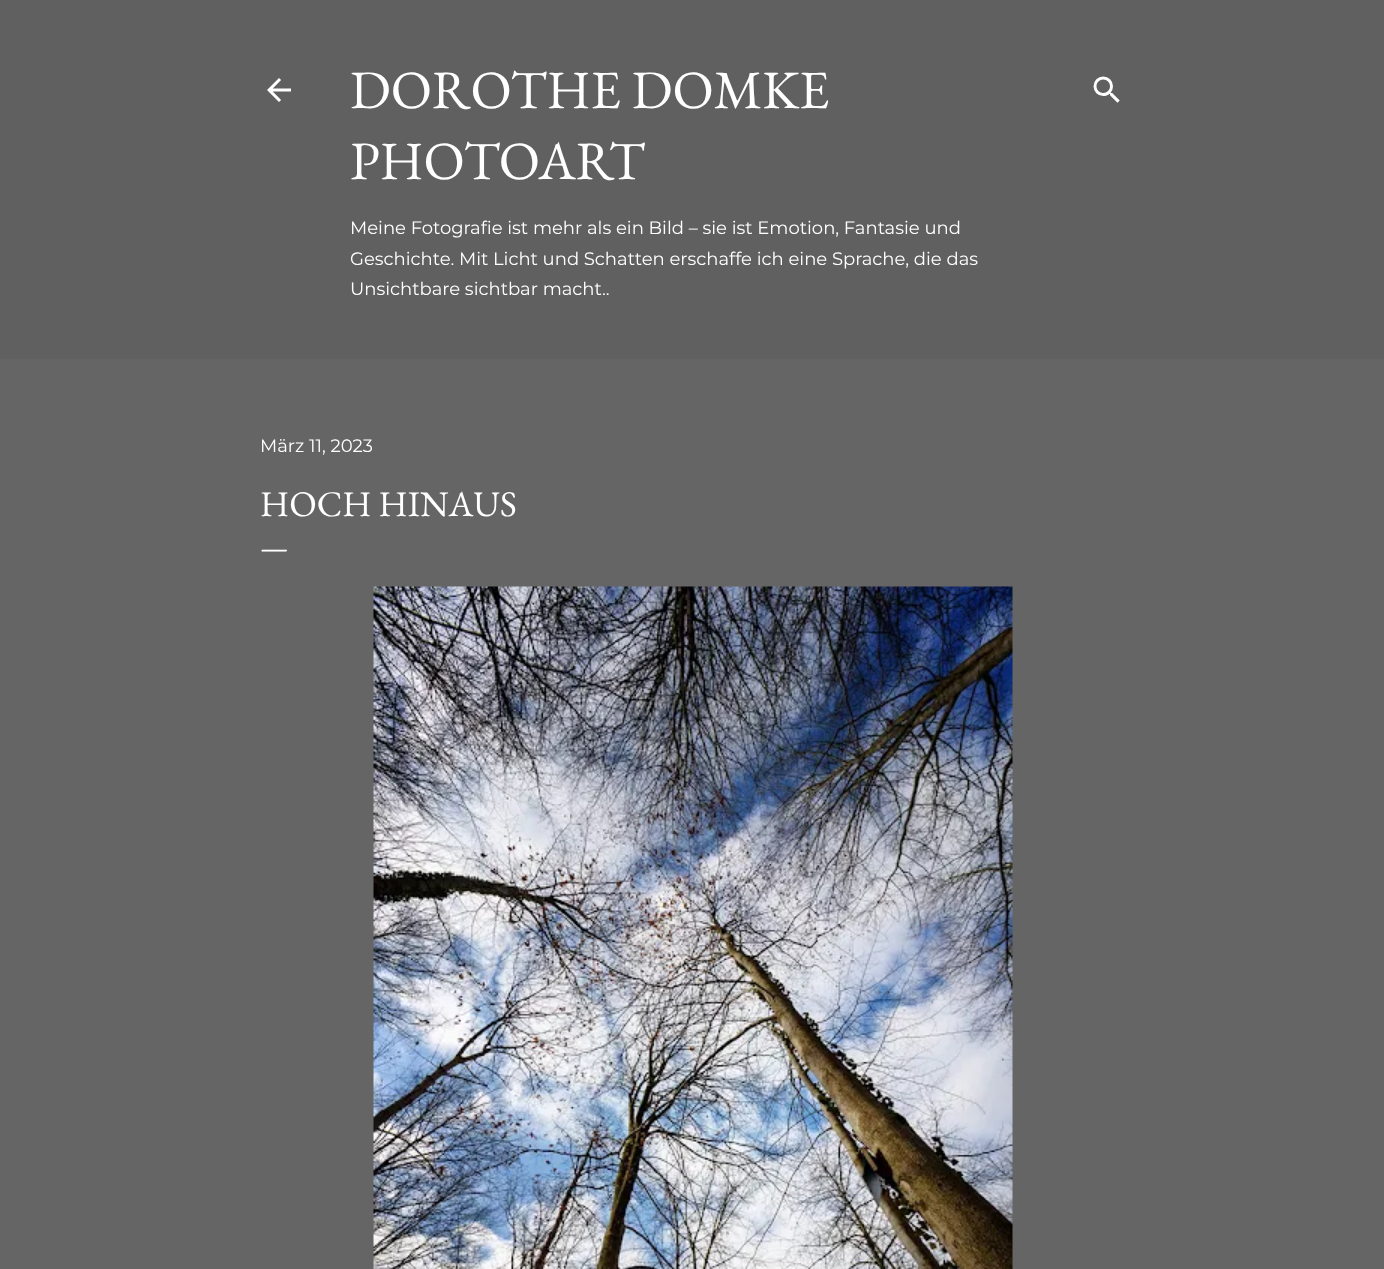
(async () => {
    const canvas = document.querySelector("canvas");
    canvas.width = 1384;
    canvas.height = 1269;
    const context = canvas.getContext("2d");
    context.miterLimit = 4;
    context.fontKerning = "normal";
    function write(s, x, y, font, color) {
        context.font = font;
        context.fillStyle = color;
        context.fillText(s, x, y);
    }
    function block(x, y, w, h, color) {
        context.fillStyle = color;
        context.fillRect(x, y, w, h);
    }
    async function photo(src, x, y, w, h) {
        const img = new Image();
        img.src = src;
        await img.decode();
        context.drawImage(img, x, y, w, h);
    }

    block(0, 0, 1384, 1269, "rgb(101, 101, 101)");
    block(0, 0, 1384, 359, "rgb(96, 96, 96)");
    await photo("media/1.png", 267, 78, 24, 24);
    write("DOROTHE DOMKE", 350, 108, "54px EB Garamond", "rgb(255, 255, 255)");
    write("PHOTOART", 350, 179, "54px EB Garamond", "rgb(255, 255, 255)");
    write("Meine Fotografie ist mehr als ein Bild – sie ist Emotion, Fantasie und", 350, 234, "18px Montserrat", "rgb(255, 255, 255)");
    write("Geschichte. Mit Licht und Schatten erschaffe ich eine Sprache, die das", 350, 265, "18px Montserrat", "rgb(255, 255, 255)");
    write("Unsichtbare sichtbar macht..", 350, 295, "18px Montserrat", "rgb(255, 255, 255)");
    await photo("media/2.png", 1093, 76, 27, 27);
    write("März 11, 2023", 260, 452, "18px Montserrat", "rgb(255, 255, 255)");
    write("HOCH HINAUS", 260, 516, "36px EB Garamond", "rgb(255, 255, 255)");
    write("—", 260, 557, "30px EB Garamond", "rgb(255, 255, 255)");
    await photo("media/3.png", 373, 586, 640, 683);
})();
